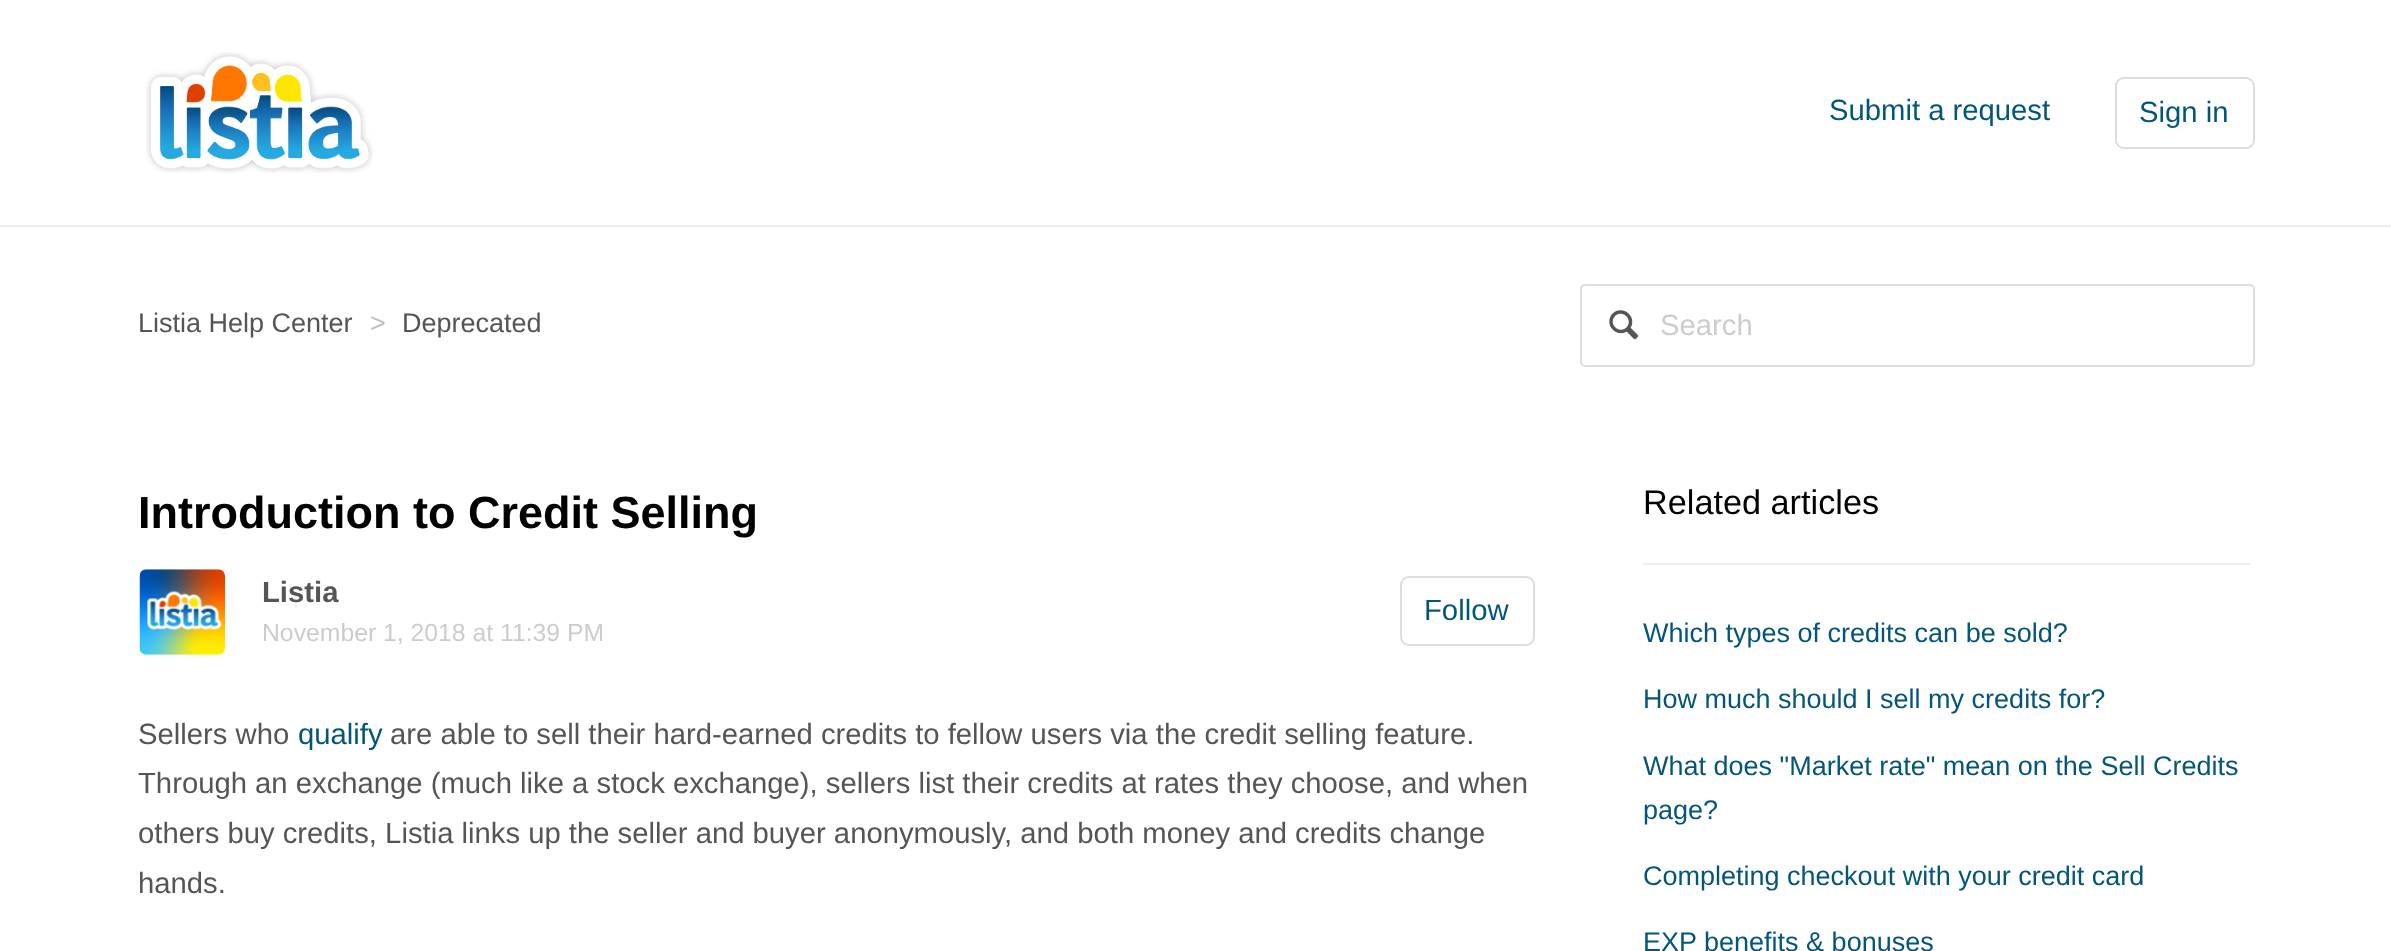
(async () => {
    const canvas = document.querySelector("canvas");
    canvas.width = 2391;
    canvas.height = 951;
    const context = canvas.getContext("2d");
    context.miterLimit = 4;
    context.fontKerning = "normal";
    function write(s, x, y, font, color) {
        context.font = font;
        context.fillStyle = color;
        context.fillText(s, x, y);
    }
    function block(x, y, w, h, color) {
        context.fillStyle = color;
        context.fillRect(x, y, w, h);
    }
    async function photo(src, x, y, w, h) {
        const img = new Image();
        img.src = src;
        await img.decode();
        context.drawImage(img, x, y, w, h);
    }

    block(0, 0, 2391, 951, "rgb(255, 255, 255)");
    block(0, 225, 2391, 2, "rgb(238, 238, 238)");
    await photo("media/1.png", 146, 52, 227, 121);
    write("Submit a request", 1829, 120, "29.25px Liberation Sans", "rgb(4, 86, 121)");
    context.beginPath();
    context.roundRect(2116, 78, 138, 70, 8);
    context.strokeStyle = "rgb(221, 221, 221)";
    context.lineWidth = 2;
    context.stroke();
    write("Sign in", 2139, 122, "29.25px Liberation Sans", "rgb(4, 86, 121)");
    write("Listia Help Center", 138, 332, "27px Liberation Sans", "rgb(85, 85, 85)");
    write(">", 370, 332, "27px Liberation Sans", "rgb(190, 190, 190)");
    write("Deprecated", 402, 332, "27px Liberation Sans", "rgb(85, 85, 85)");
    context.beginPath();
    context.roundRect(1581, 285, 673, 81, 4);
    context.stroke();
    await photo("media/2.png", 1609, 310, 30, 30);
    write("Search", 1660, 335, "29.25px Liberation Sans", "rgb(204, 204, 204)");
    write("Introduction to Credit Selling", 138, 528, "bold 45px Liberation Sans", "rgb(0, 0, 0)");
    await photo("media/3.png", 139, 569, 86, 86);
    write("Listia", 262, 602, "bold 29.25px Liberation Sans", "rgb(85, 85, 85)");
    write("November 1, 2018 at 11:39 PM", 262, 641, "24.75px Liberation Sans", "rgb(204, 204, 204)");
    context.beginPath();
    context.roundRect(1401, 577, 133, 68, 8);
    context.stroke();
    write("Follow", 1424, 620, "29.25px Liberation Sans", "rgb(4, 86, 121)");
    write("Sellers who", 138, 744, "29.25px Liberation Sans", "rgb(85, 85, 85)");
    write("qualify", 298, 744, "29.25px Liberation Sans", "rgb(4, 86, 121)");
    write("are able to sell their hard-earned credits to fellow users via the credit selling feature.", 390, 744, "29.25px Liberation Sans", "rgb(85, 85, 85)");
    write("Through an exchange (much like a stock exchange), sellers list their credits at rates they choose, and when", 138, 793, "29.25px Liberation Sans", "rgb(85, 85, 85)");
    write("others buy credits, Listia links up the seller and buyer anonymously, and both money and credits change", 138, 843, "29.25px Liberation Sans", "rgb(85, 85, 85)");
    write("hands.", 138, 893, "29.25px Liberation Sans", "rgb(85, 85, 85)");
    block(1643, 563, 607, 2, "rgb(238, 238, 238)");
    write("Related articles", 1643, 514, "34.25px Liberation Sans", "rgb(0, 0, 0)");
    write("Which types of credits can be sold?", 1643, 642, "27px Liberation Sans", "rgb(4, 86, 121)");
    write("How much should I sell my credits for?", 1643, 708, "27px Liberation Sans", "rgb(4, 86, 121)");
    write("What does \"Market rate\" mean on the Sell Credits", 1643, 775, "27px Liberation Sans", "rgb(4, 86, 121)");
    write("page?", 1643, 819, "27px Liberation Sans", "rgb(4, 86, 121)");
    write("Completing checkout with your credit card", 1643, 885, "27px Liberation Sans", "rgb(4, 86, 121)");
    write("EXP benefits & bonuses", 1643, 951, "27px Liberation Sans", "rgb(4, 86, 121)");
})();
